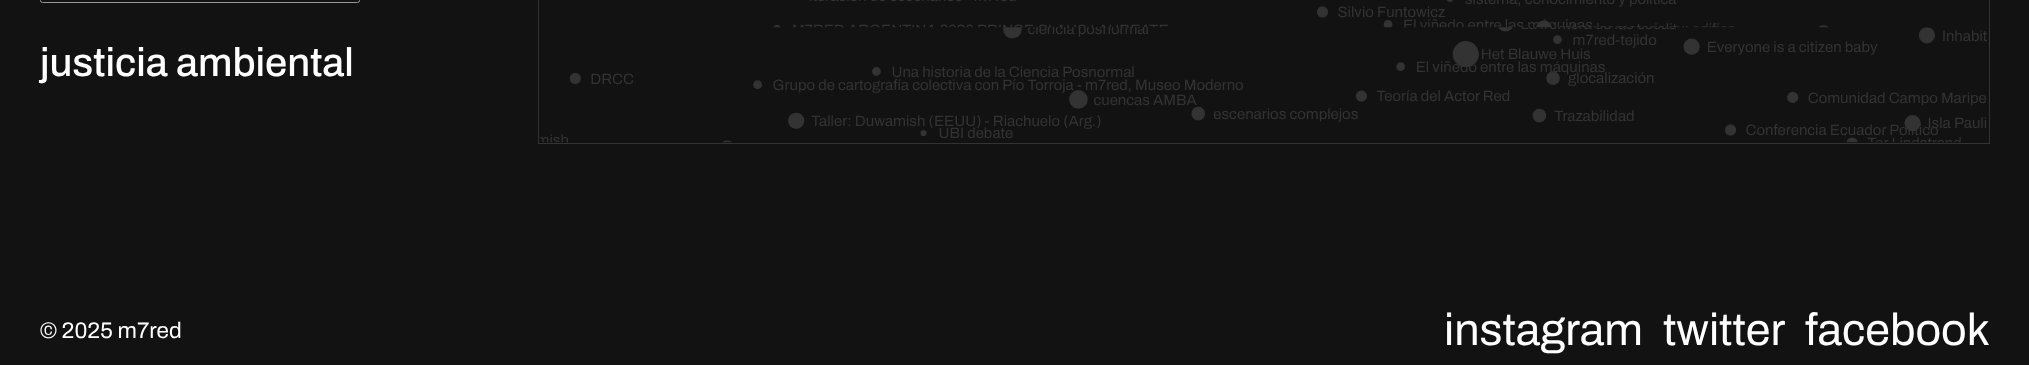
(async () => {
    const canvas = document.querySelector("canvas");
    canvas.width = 2029;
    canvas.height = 365;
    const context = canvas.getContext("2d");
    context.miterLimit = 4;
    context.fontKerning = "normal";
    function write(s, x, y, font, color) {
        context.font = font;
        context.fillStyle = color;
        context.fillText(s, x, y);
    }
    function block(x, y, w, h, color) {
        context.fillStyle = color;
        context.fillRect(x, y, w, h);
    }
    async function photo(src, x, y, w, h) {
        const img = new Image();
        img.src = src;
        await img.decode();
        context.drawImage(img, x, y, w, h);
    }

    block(0, 0, 2029, 365, "rgb(18, 18, 18)");
    context.beginPath();
    context.roundRect(40.5, -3.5, 319, 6, 2);
    context.strokeStyle = "rgb(153, 153, 153)";
    context.stroke();
    write("justicia ambiental", 40, 76, "500 40px Archivo", "rgb(255, 255, 255)");
    context.strokeStyle = "rgb(51, 51, 51)";
    context.strokeRect(538.5, -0.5, 1451, 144);
    await photo("media/1.png", 773, 0, 1056, 28);
    await photo("media/2.png", 540, 27, 1447, 116);
    write("© 2025 m7red", 40, 338, "22.5px Archivo", "rgb(255, 255, 255)");
    write("instagram", 1444, 345, "45px Archivo", "rgb(255, 255, 255)");
    write("twitter", 1663, 345, "45px Archivo", "rgb(255, 255, 255)");
    write("facebook", 1805, 345, "45px Archivo", "rgb(255, 255, 255)");
})();
